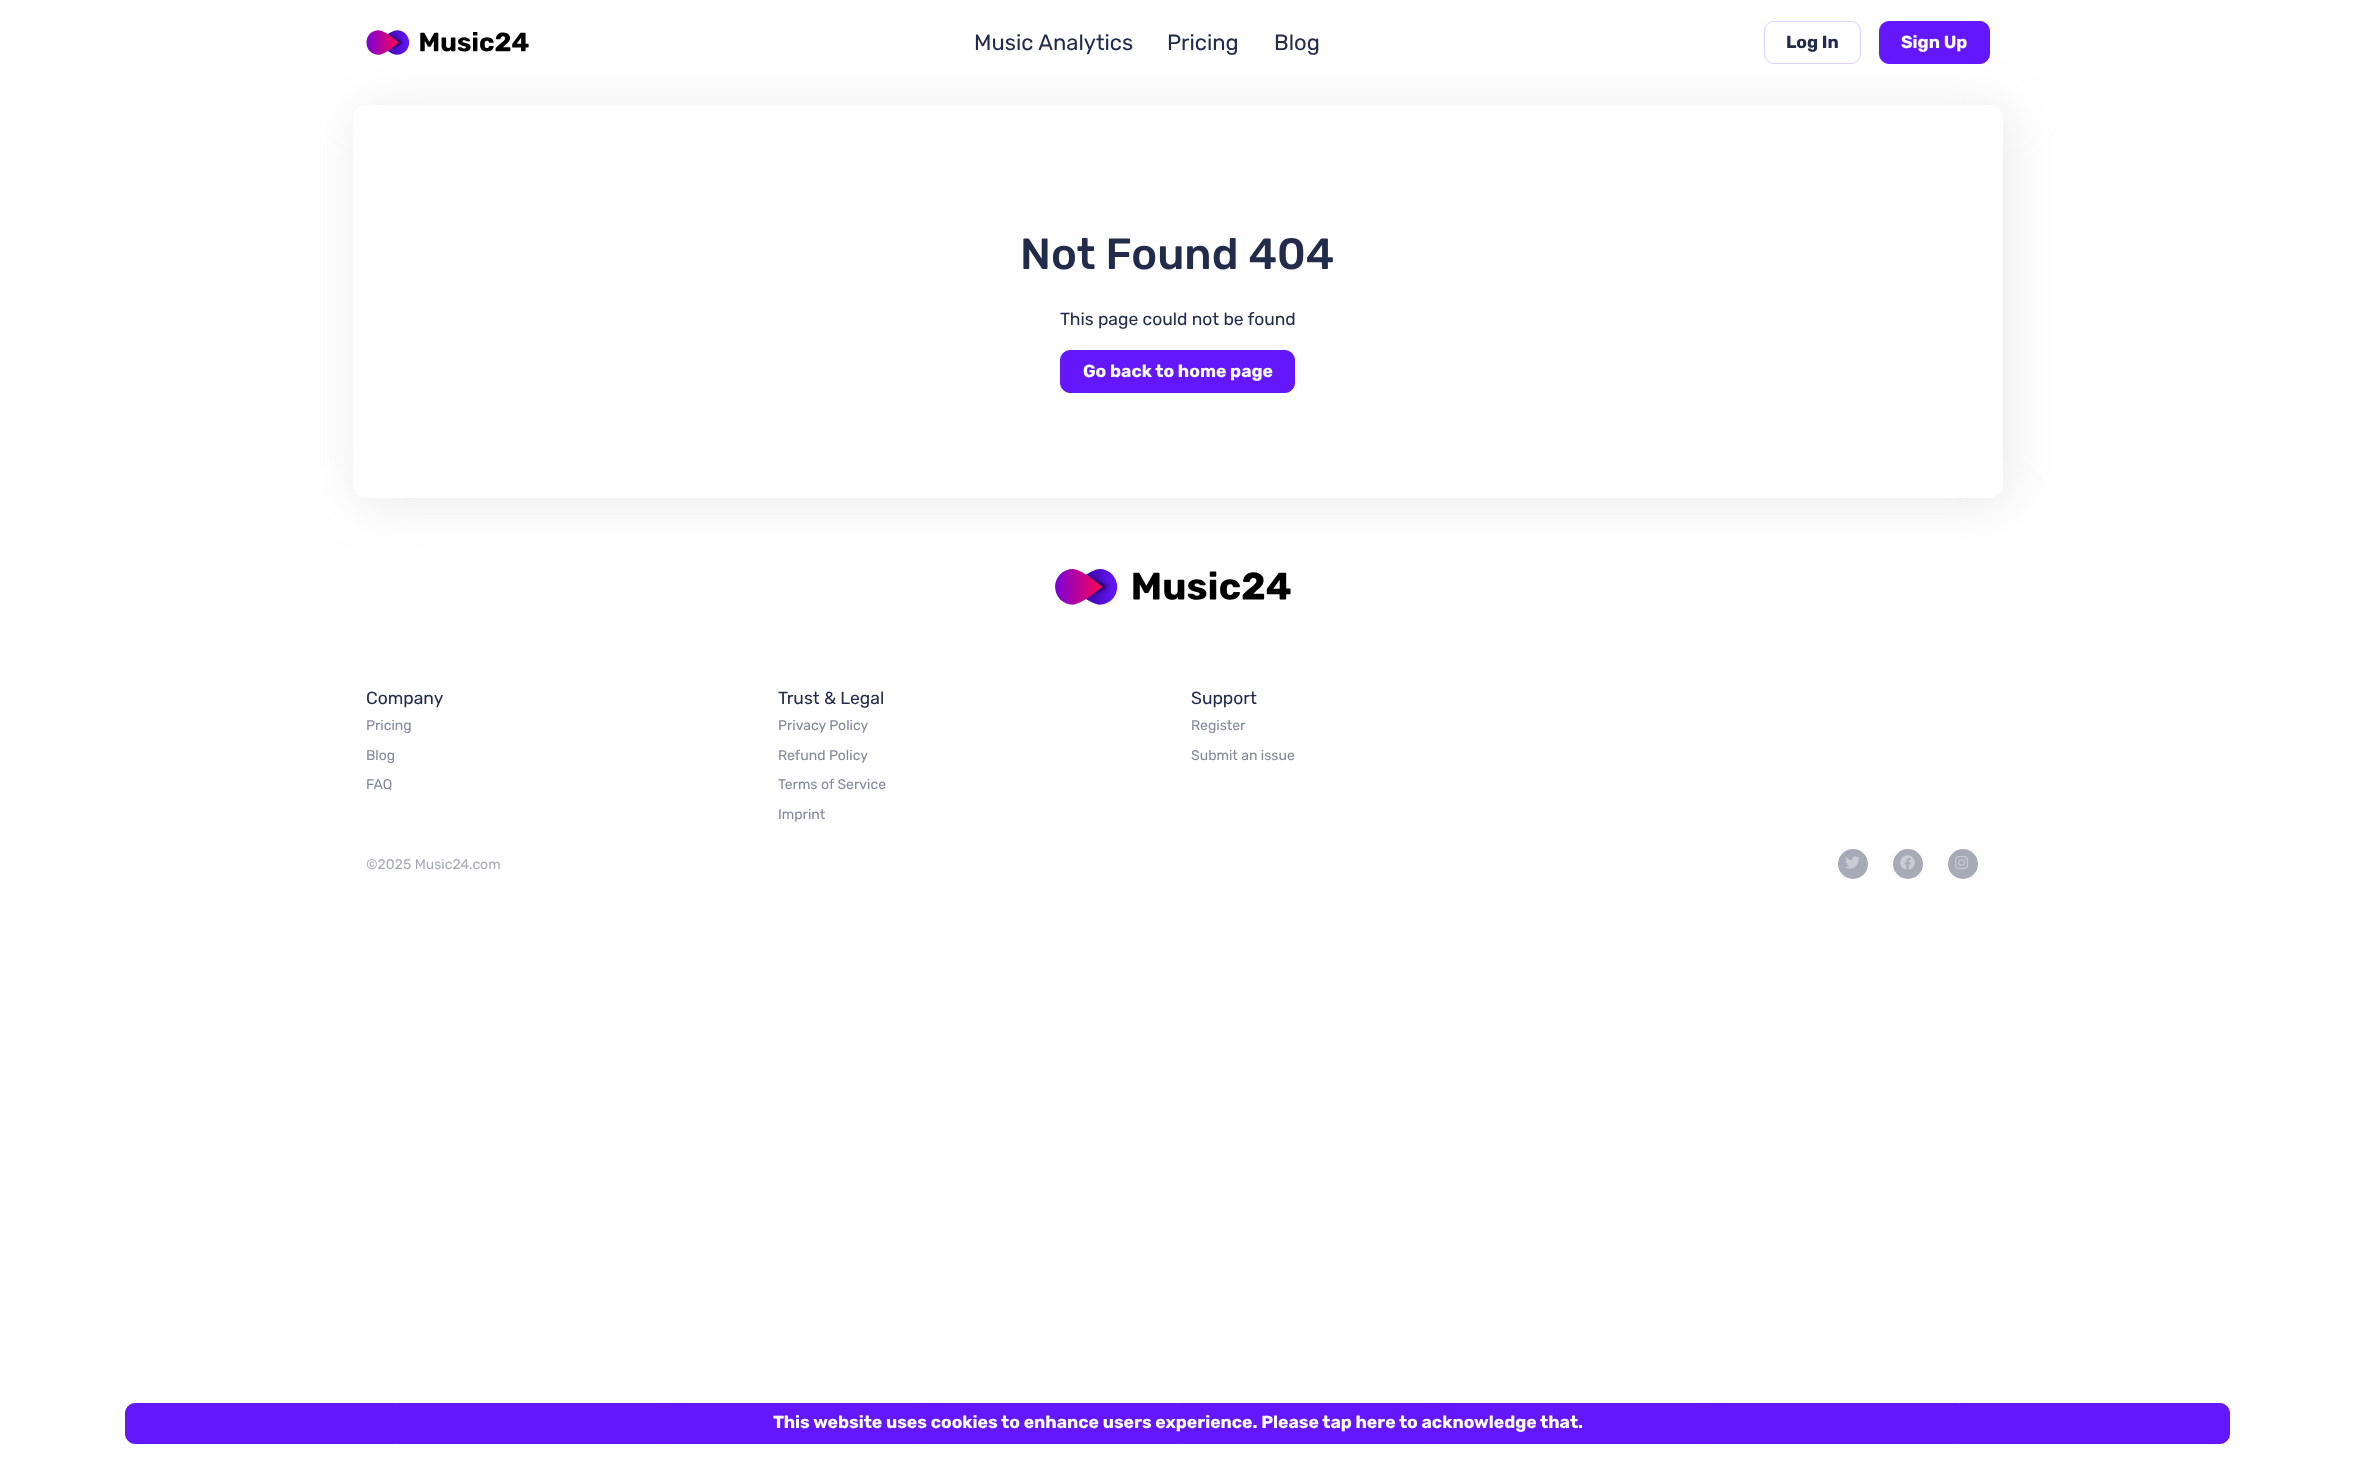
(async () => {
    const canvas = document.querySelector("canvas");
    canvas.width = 2354;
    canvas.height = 1464;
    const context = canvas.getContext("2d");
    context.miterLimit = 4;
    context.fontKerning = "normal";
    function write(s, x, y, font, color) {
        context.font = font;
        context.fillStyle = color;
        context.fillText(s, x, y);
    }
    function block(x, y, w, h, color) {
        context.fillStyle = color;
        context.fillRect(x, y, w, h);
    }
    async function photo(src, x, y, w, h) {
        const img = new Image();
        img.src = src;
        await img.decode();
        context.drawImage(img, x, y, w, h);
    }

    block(0, 0, 2354, 1464, "rgb(255, 255, 255)");
    context.save();
    context.beginPath();
    context.moveTo(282, 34);
    context.lineTo(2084, 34);
    context.lineTo(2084, 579);
    context.lineTo(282, 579);
    context.closePath();
    context.moveTo(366, 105);
    context.lineTo(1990, 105);
    context.bezierCurveTo(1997, 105, 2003, 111, 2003, 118);
    context.lineTo(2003, 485);
    context.bezierCurveTo(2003, 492, 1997, 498, 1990, 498);
    context.lineTo(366, 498);
    context.bezierCurveTo(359, 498, 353, 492, 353, 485);
    context.lineTo(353, 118);
    context.bezierCurveTo(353, 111, 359, 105, 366, 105);
    context.closePath();
    context.clip("evenodd");
    context.fillStyle = "rgba(168, 168, 168, 0.25)";
    context.filter = "blur(25px)";
    context.beginPath();
    context.roundRect(358, 110, 1650, 393, 13);
    context.fill();
    context.filter = "none";
    context.restore();
    await photo("media/1.png", 366, 30, 163, 25);
    write("Music Analytics", 974, 50, "22px Rubik", "rgb(34, 43, 74)");
    write("Pricing", 1167, 50, "22px Rubik", "rgb(34, 43, 74)");
    write("Blog", 1274, 50, "22px Rubik", "rgb(34, 43, 74)");
    context.beginPath();
    context.roundRect(1764.5, 21.5, 96, 42, 9.5);
    context.strokeStyle = "rgb(224, 208, 254)";
    context.stroke();
    write("Log In", 1786, 48, "bold 17.5px Rubik", "rgb(34, 43, 74)");
    context.fillStyle = "rgb(100, 23, 251)";
    context.beginPath();
    context.roundRect(1879.5, 21.5, 110, 42, 9.5);
    context.fill();
    context.strokeStyle = "rgb(100, 23, 251)";
    context.stroke();
    write("Sign Up", 1901, 48, "bold 17.5px Rubik", "rgb(255, 255, 255)");
    write("Not Found 404", 1020, 269, "500 43.75px Rubik", "rgb(34, 43, 74)");
    write("This page could not be found", 1060, 325, "17.5px Rubik", "rgb(34, 43, 74)");
    context.fillStyle = "rgb(100, 23, 251)";
    context.beginPath();
    context.roundRect(1060.5, 350.5, 234, 42, 9.5);
    context.fill();
    context.stroke();
    write("Go back to home page", 1083, 377, "bold 17.5px Rubik", "rgb(255, 255, 255)");
    context.fillStyle = "rgb(100, 23, 251)";
    context.beginPath();
    context.roundRect(125.5, 1403.5, 2104, 40, 9.5);
    context.fill();
    context.stroke();
    write("This website uses cookies to enhance users experience. Please tap here to acknowledge that.", 773, 1428, "bold 17.5px Rubik", "rgb(255, 255, 255)");
    await photo("media/2.png", 1055, 569, 236, 36);
    write("Company", 366, 704, "17.5px Rubik", "rgb(34, 43, 74)");
    write("Pricing", 366, 730, "14px Rubik", "rgb(131, 136, 154)");
    write("Blog", 366, 760, "14px Rubik", "rgb(131, 136, 154)");
    write("FAQ", 366, 789, "14px Rubik", "rgb(131, 136, 154)");
    write("Trust & Legal", 778, 704, "17.5px Rubik", "rgb(34, 43, 74)");
    write("Privacy Policy", 778, 730, "14px Rubik", "rgb(131, 136, 154)");
    write("Refund Policy", 778, 760, "14px Rubik", "rgb(131, 136, 154)");
    write("Terms of Service", 778, 789, "14px Rubik", "rgb(131, 136, 154)");
    write("Imprint", 778, 819, "14px Rubik", "rgb(131, 136, 154)");
    write("Support", 1191, 704, "17.5px Rubik", "rgb(34, 43, 74)");
    write("Register", 1191, 730, "14px Rubik", "rgb(131, 136, 154)");
    write("Submit an issue", 1191, 760, "14px Rubik", "rgb(131, 136, 154)");
    write("©2025 Music24.com", 366, 869, "14px Rubik", "rgb(167, 170, 183)");
    context.beginPath();
    context.arc(1853, 864, 15, 0, Math.PI * 2);
    context.fill();
    await photo("media/3.png", 1845, 856, 15, 13);
    context.beginPath();
    context.arc(1908, 864, 15, 0, Math.PI * 2);
    context.fill();
    await photo("media/4.png", 1900, 855, 15, 15);
    context.beginPath();
    context.arc(1963, 864, 15, 0, Math.PI * 2);
    context.fill();
    await photo("media/5.png", 1955, 856, 13, 13);
})();
